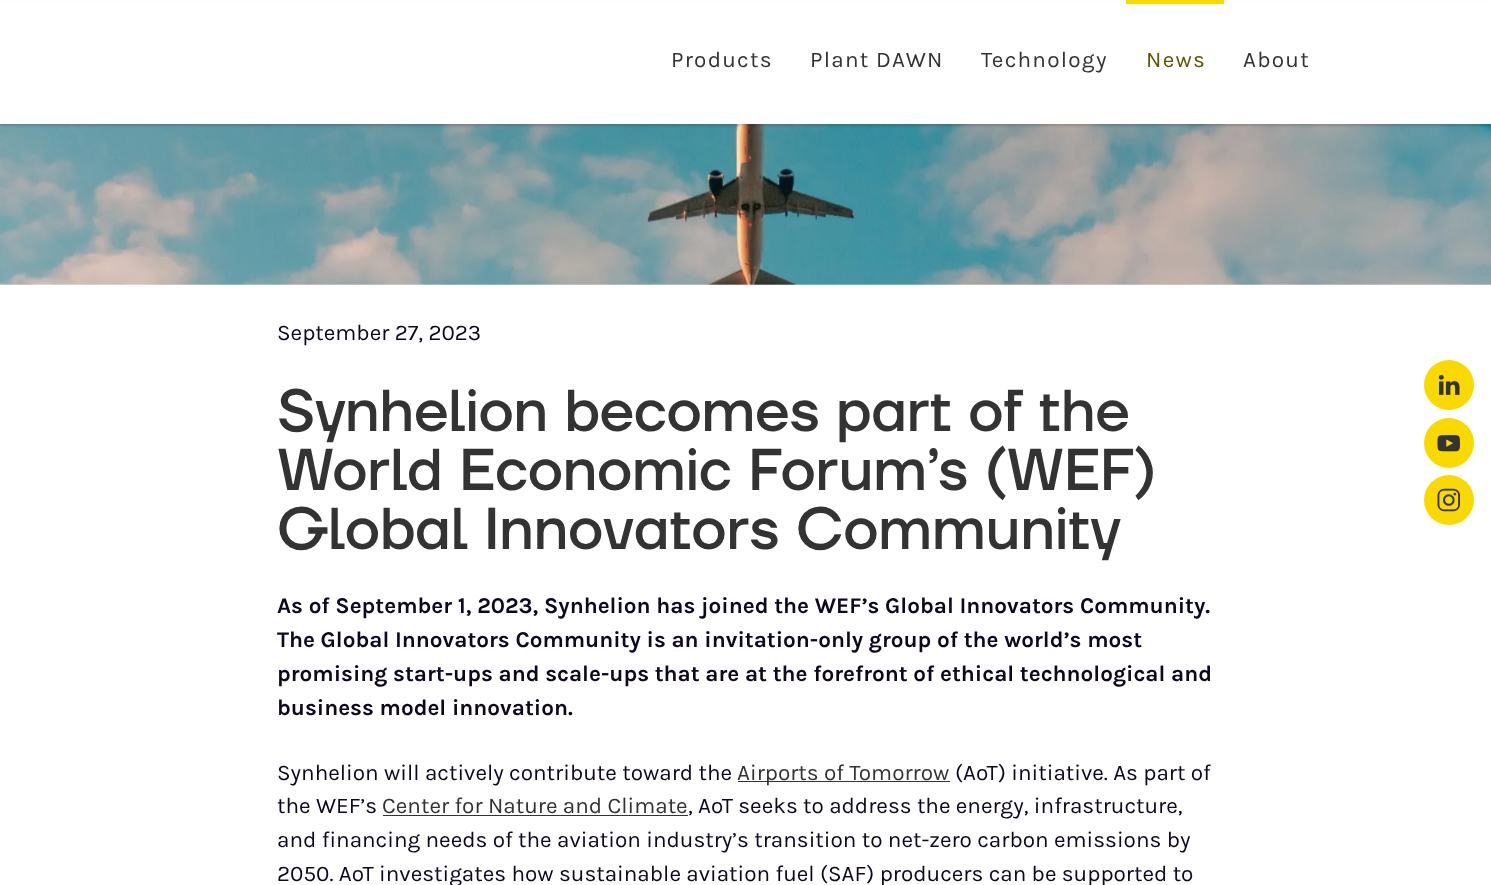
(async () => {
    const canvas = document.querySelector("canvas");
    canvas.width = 1491;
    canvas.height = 885;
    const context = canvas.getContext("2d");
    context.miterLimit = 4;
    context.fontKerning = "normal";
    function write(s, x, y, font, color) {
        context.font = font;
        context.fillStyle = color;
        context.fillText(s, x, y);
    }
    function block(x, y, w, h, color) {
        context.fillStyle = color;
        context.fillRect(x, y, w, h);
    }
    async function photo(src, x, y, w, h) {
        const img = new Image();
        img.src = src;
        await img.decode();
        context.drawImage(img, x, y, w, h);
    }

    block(0, 0, 1491, 885, "rgb(255, 255, 255)");
    await photo("media/1.png", 0, 124, 1491, 161);
    context.fillStyle = "rgba(0, 0, 0, 0.15)";
    context.filter = "blur(1px)";
    context.beginPath();
    context.rect(0, 3, 1491, 123);
    context.fill();
    context.filter = "none";
    block(0, 2, 1491, 122, "rgb(255, 255, 255)");
    context.letterSpacing = "1.25px";
    write("Products", 671, 67, "22.5px Karla", "rgb(51, 51, 51)");
    write("Plant DAWN", 810, 67, "22.5px Karla", "rgb(51, 51, 51)");
    write("Technology", 981, 67, "22.5px Karla", "rgb(51, 51, 51)");
    block(1126, 0, 98, 4, "rgb(249, 217, 0)");
    write("News", 1146, 67, "22.5px Karla", "rgb(96, 84, 0)");
    write("About", 1243, 67, "22.5px Karla", "rgb(51, 51, 51)");
    context.letterSpacing = "0px";
    write("September 27, 2023", 277, 340, "22.5px Karla", "rgb(14, 7, 29)");
    write("Synhelion becomes part of the", 277, 431, "500 59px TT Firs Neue", "rgb(51, 51, 51)");
    write("World Economic Forum’s (WEF)", 277, 490, "500 59px TT Firs Neue", "rgb(51, 51, 51)");
    write("Global Innovators Community", 277, 549, "500 59px TT Firs Neue", "rgb(51, 51, 51)");
    write("As of September 1, 2023, Synhelion has joined the WEF’s Global Innovators Community.", 277, 613, "bold 22.5px Karla", "rgb(14, 7, 29)");
    write("The Global Innovators Community is an invitation-only group of the world’s most", 277, 647, "bold 22.5px Karla", "rgb(14, 7, 29)");
    write("promising start-ups and scale-ups that are at the forefront of ethical technological and", 277, 681, "bold 22.5px Karla", "rgb(14, 7, 29)");
    write("business model innovation.", 277, 715, "bold 22.5px Karla", "rgb(14, 7, 29)");
    write("Synhelion will actively contribute toward the", 277, 780, "22.5px Karla", "rgb(14, 7, 29)");
    block(738, 781, 212, 1, "rgb(51, 51, 51)");
    write("Airports of Tomorrow", 737, 780, "22.5px Karla", "rgb(51, 51, 51)");
    write("(AoT) initiative. As part of", 955, 780, "22.5px Karla", "rgb(14, 7, 29)");
    write("the WEF’s", 277, 813, "22.5px Karla", "rgb(14, 7, 29)");
    write("Center for Nature and Climate", 382, 813, "22.5px Karla", "rgb(51, 51, 51)");
    block(383, 815, 305, 1, "rgb(51, 51, 51)");
    write(", AoT seeks to address the energy, infrastructure,", 688, 813, "22.5px Karla", "rgb(14, 7, 29)");
    write("and financing needs of the aviation industry’s transition to net-zero carbon emissions by", 277, 847, "22.5px Karla", "rgb(14, 7, 29)");
    write("2050. AoT investigates how sustainable aviation fuel (SAF) producers can be supported to", 277, 881, "22.5px Karla", "rgb(14, 7, 29)");
    context.fillStyle = "rgb(249, 217, 0)";
    context.beginPath();
    context.arc(1449, 385, 25, 0, Math.PI * 2);
    context.fill();
    await photo("media/2.png", 1438, 375, 22, 20);
    context.beginPath();
    context.arc(1449, 443, 25, 0, Math.PI * 2);
    context.fill();
    await photo("media/3.png", 1437, 435, 23, 17);
    context.beginPath();
    context.arc(1449, 500, 25, 0, Math.PI * 2);
    context.fill();
    await photo("media/4.png", 1437, 488, 23, 24);
})();
